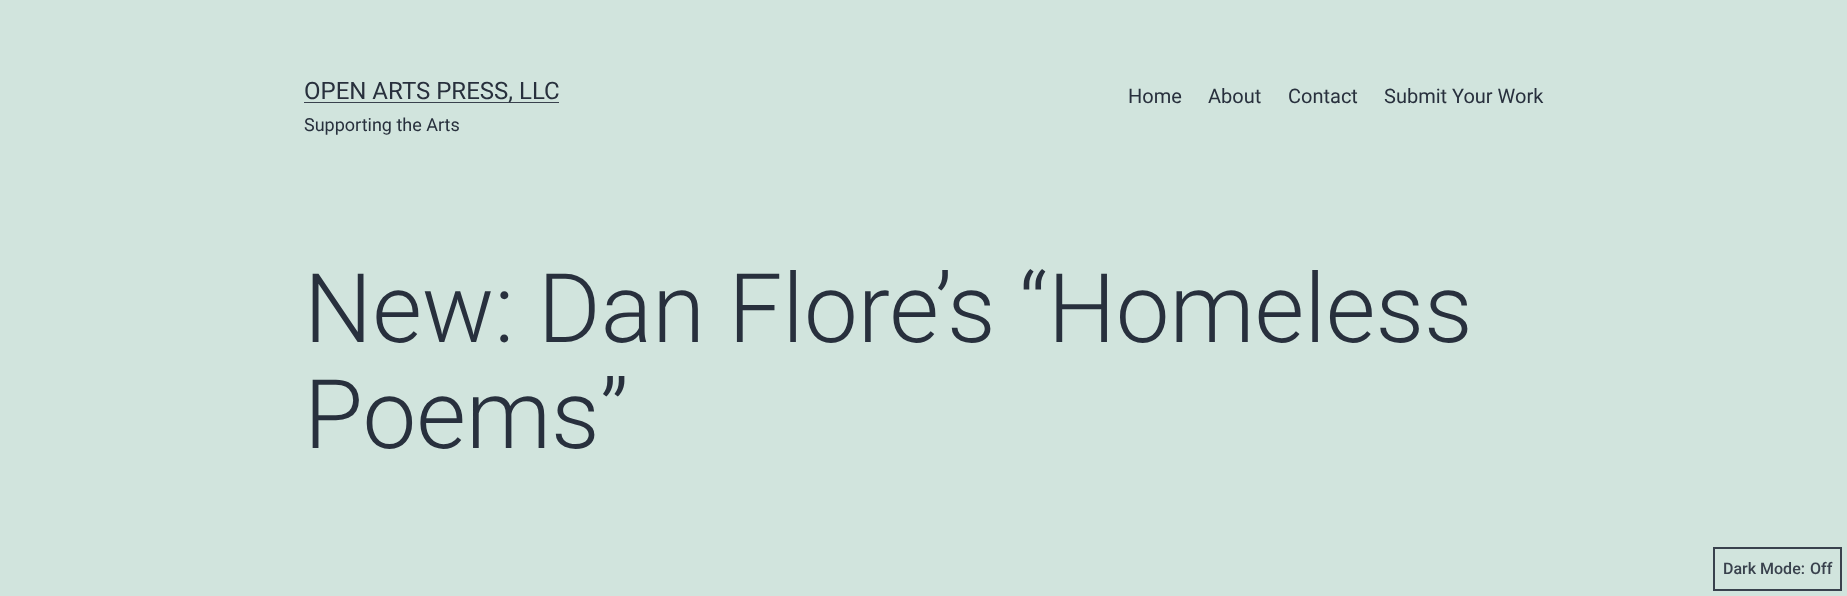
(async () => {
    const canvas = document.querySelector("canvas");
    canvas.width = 1847;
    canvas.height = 596;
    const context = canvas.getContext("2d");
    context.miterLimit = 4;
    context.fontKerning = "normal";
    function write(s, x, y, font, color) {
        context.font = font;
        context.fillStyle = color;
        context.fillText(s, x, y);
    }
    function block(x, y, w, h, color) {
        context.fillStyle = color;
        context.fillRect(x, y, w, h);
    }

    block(0, 0, 1847, 596, "rgb(209, 228, 221)");
    block(304, 102, 255, 1, "rgb(57, 65, 77)");
    write("OPEN ARTS PRESS, LLC", 304, 99, "24px Roboto", "rgb(40, 48, 61)");
    write("Supporting the Arts", 304, 131, "18px Roboto", "rgb(40, 48, 61)");
    write("Home", 1128, 103, "20px Roboto", "rgb(40, 48, 61)");
    write("About", 1208, 103, "20px Roboto", "rgb(40, 48, 61)");
    write("Contact", 1288, 103, "20px Roboto", "rgb(40, 48, 61)");
    write("Submit Your Work", 1384, 103, "20px Roboto", "rgb(40, 48, 61)");
    write("New: Dan Flore’s “Homeless", 304, 342, "300 96px Roboto", "rgb(40, 48, 61)");
    write("Poems”", 304, 448, "300 96px Roboto", "rgb(40, 48, 61)");
    context.strokeStyle = "rgb(57, 65, 77)";
    context.lineWidth = 2;
    context.strokeRect(1714, 548, 127, 42);
    write("Dark Mode:", 1723, 574, "500 16px Roboto", "rgb(57, 65, 77)");
    write("Off", 1810, 574, "500 16px Roboto", "rgb(57, 65, 77)");
})();
